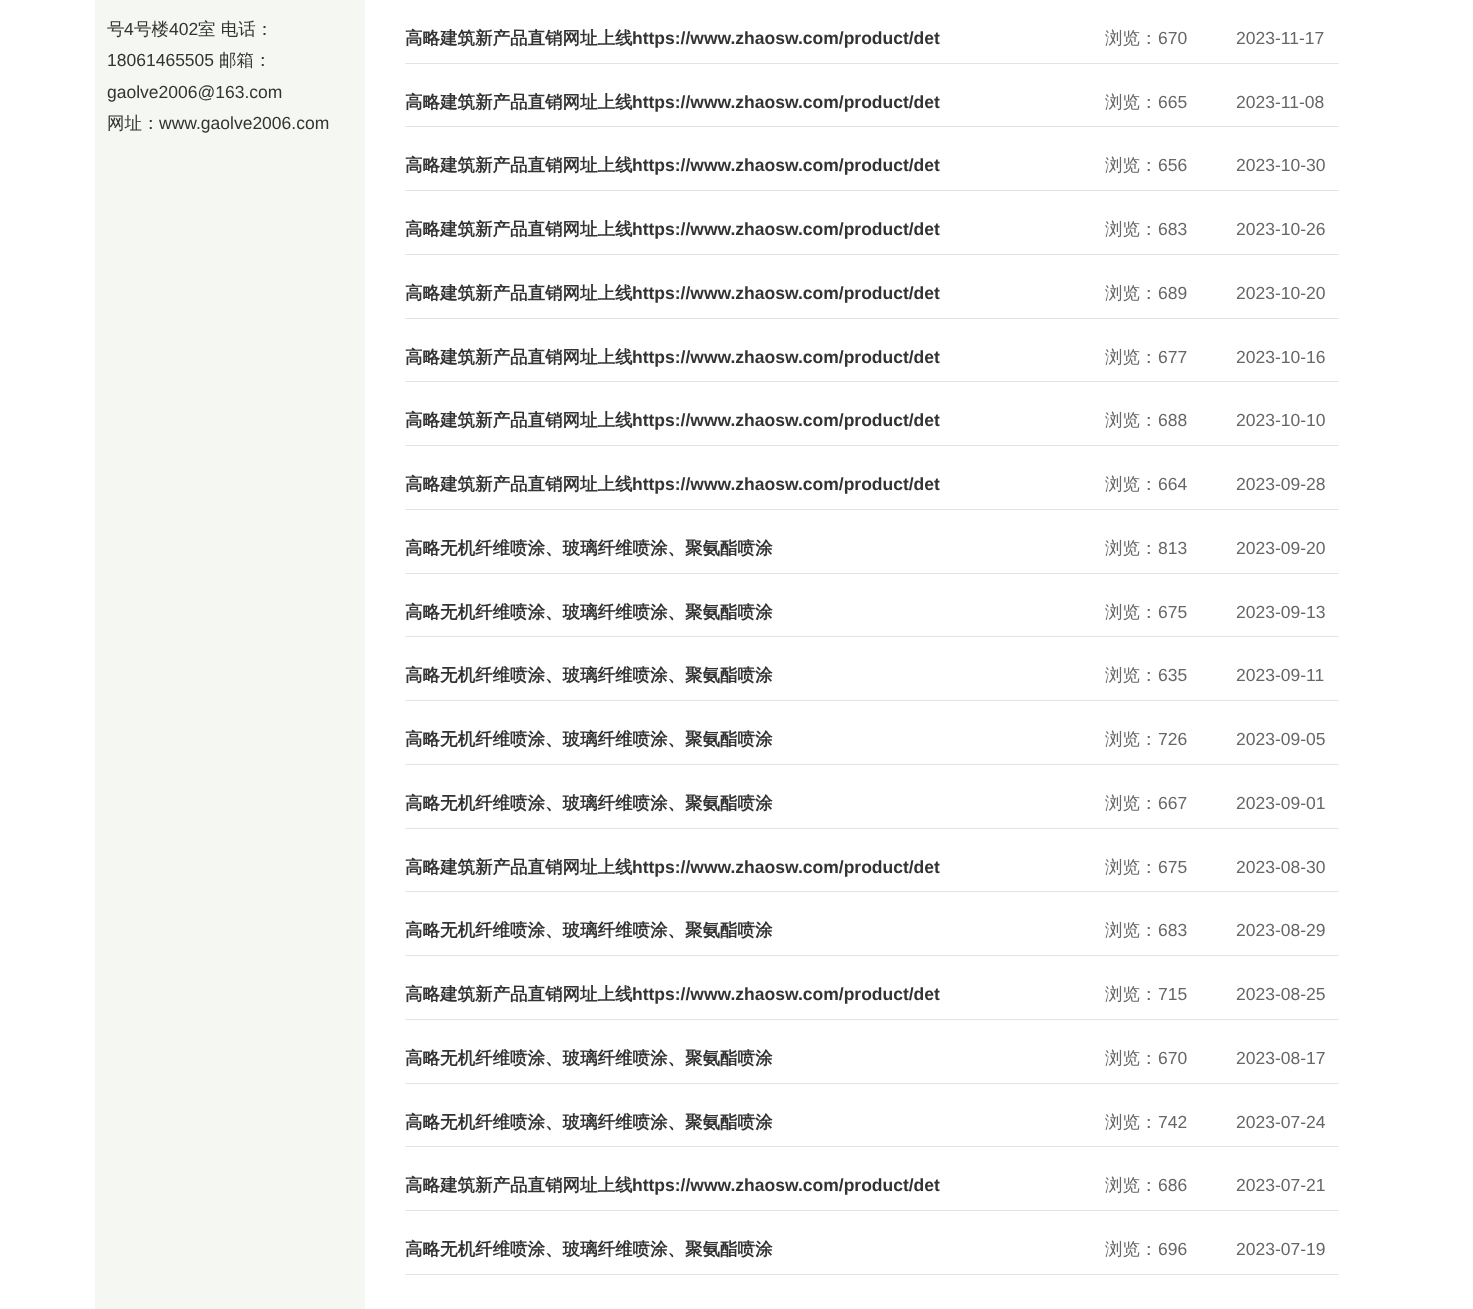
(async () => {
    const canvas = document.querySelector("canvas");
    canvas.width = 1473;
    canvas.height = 1309;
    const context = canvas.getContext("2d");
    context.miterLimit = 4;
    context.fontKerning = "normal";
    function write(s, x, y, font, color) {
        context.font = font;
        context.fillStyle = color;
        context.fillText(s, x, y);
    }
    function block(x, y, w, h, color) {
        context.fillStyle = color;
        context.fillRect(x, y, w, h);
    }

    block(0, 0, 1473, 1309, "rgb(255, 255, 255)");
    block(95, 0, 270, 1309, "rgb(245, 247, 242)");
    write("号", 107, 35, "500 17.5px WenQuanYi Zen Hei", "rgb(51, 51, 51)");
    write("4", 124, 35, "17.5px Liberation Sans", "rgb(51, 51, 51)");
    write("号楼", 134, 35, "500 17.5px WenQuanYi Zen Hei", "rgb(51, 51, 51)");
    write("402", 169, 35, "17.5px Liberation Sans", "rgb(51, 51, 51)");
    write("室 电话：", 198, 35, "500 17.5px WenQuanYi Zen Hei", "rgb(51, 51, 51)");
    write("18061465505", 107, 66, "17.5px Liberation Sans", "rgb(51, 51, 51)");
    write("邮箱：", 219, 66, "500 17.5px WenQuanYi Zen Hei", "rgb(51, 51, 51)");
    write("gaolve2006@163.com", 107, 98, "17.5px Liberation Sans", "rgb(51, 51, 51)");
    write("网址：", 107, 129, "500 17.5px WenQuanYi Zen Hei", "rgb(51, 51, 51)");
    write("www.gaolve2006.com", 159, 129, "17.5px Liberation Sans", "rgb(51, 51, 51)");
    write("高略建筑新产品直销网址上线", 405, 44, "bold 17.5px WenQuanYi Zen Hei", "rgb(51, 51, 51)");
    write("https://www.zhaosw.com/product/det", 632, 44, "bold 17.5px Liberation Sans", "rgb(51, 51, 51)");
    write("浏览：", 1105, 44, "500 17.5px WenQuanYi Zen Hei", "rgb(102, 102, 102)");
    write("670", 1158, 44, "17.5px Liberation Sans", "rgb(102, 102, 102)");
    write("2023-11-17", 1236, 44, "17.5px Liberation Sans", "rgb(102, 102, 102)");
    block(405, 63, 934, 1, "rgb(227, 227, 227)");
    write("高略建筑新产品直销网址上线", 405, 108, "bold 17.5px WenQuanYi Zen Hei", "rgb(51, 51, 51)");
    write("https://www.zhaosw.com/product/det", 632, 108, "bold 17.5px Liberation Sans", "rgb(51, 51, 51)");
    write("浏览：", 1105, 108, "500 17.5px WenQuanYi Zen Hei", "rgb(102, 102, 102)");
    write("665", 1158, 108, "17.5px Liberation Sans", "rgb(102, 102, 102)");
    write("2023-11-08", 1236, 108, "17.5px Liberation Sans", "rgb(102, 102, 102)");
    block(405, 126, 934, 1, "rgb(227, 227, 227)");
    write("高略建筑新产品直销网址上线", 405, 171, "bold 17.5px WenQuanYi Zen Hei", "rgb(51, 51, 51)");
    write("https://www.zhaosw.com/product/det", 632, 171, "bold 17.5px Liberation Sans", "rgb(51, 51, 51)");
    write("浏览：", 1105, 171, "500 17.5px WenQuanYi Zen Hei", "rgb(102, 102, 102)");
    write("656", 1158, 171, "17.5px Liberation Sans", "rgb(102, 102, 102)");
    write("2023-10-30", 1236, 171, "17.5px Liberation Sans", "rgb(102, 102, 102)");
    block(405, 190, 934, 1, "rgb(227, 227, 227)");
    write("高略建筑新产品直销网址上线", 405, 235, "bold 17.5px WenQuanYi Zen Hei", "rgb(51, 51, 51)");
    write("https://www.zhaosw.com/product/det", 632, 235, "bold 17.5px Liberation Sans", "rgb(51, 51, 51)");
    write("浏览：", 1105, 235, "500 17.5px WenQuanYi Zen Hei", "rgb(102, 102, 102)");
    write("683", 1158, 235, "17.5px Liberation Sans", "rgb(102, 102, 102)");
    write("2023-10-26", 1236, 235, "17.5px Liberation Sans", "rgb(102, 102, 102)");
    block(405, 254, 934, 1, "rgb(227, 227, 227)");
    write("高略建筑新产品直销网址上线", 405, 299, "bold 17.5px WenQuanYi Zen Hei", "rgb(51, 51, 51)");
    write("https://www.zhaosw.com/product/det", 632, 299, "bold 17.5px Liberation Sans", "rgb(51, 51, 51)");
    write("浏览：", 1105, 299, "500 17.5px WenQuanYi Zen Hei", "rgb(102, 102, 102)");
    write("689", 1158, 299, "17.5px Liberation Sans", "rgb(102, 102, 102)");
    write("2023-10-20", 1236, 299, "17.5px Liberation Sans", "rgb(102, 102, 102)");
    block(405, 318, 934, 1, "rgb(227, 227, 227)");
    write("高略建筑新产品直销网址上线", 405, 363, "bold 17.5px WenQuanYi Zen Hei", "rgb(51, 51, 51)");
    write("https://www.zhaosw.com/product/det", 632, 363, "bold 17.5px Liberation Sans", "rgb(51, 51, 51)");
    write("浏览：", 1105, 363, "500 17.5px WenQuanYi Zen Hei", "rgb(102, 102, 102)");
    write("677", 1158, 363, "17.5px Liberation Sans", "rgb(102, 102, 102)");
    write("2023-10-16", 1236, 363, "17.5px Liberation Sans", "rgb(102, 102, 102)");
    block(405, 381, 934, 1, "rgb(227, 227, 227)");
    write("高略建筑新产品直销网址上线", 405, 426, "bold 17.5px WenQuanYi Zen Hei", "rgb(51, 51, 51)");
    write("https://www.zhaosw.com/product/det", 632, 426, "bold 17.5px Liberation Sans", "rgb(51, 51, 51)");
    write("浏览：", 1105, 426, "500 17.5px WenQuanYi Zen Hei", "rgb(102, 102, 102)");
    write("688", 1158, 426, "17.5px Liberation Sans", "rgb(102, 102, 102)");
    write("2023-10-10", 1236, 426, "17.5px Liberation Sans", "rgb(102, 102, 102)");
    block(405, 445, 934, 1, "rgb(227, 227, 227)");
    write("高略建筑新产品直销网址上线", 405, 490, "bold 17.5px WenQuanYi Zen Hei", "rgb(51, 51, 51)");
    write("https://www.zhaosw.com/product/det", 632, 490, "bold 17.5px Liberation Sans", "rgb(51, 51, 51)");
    write("浏览：", 1105, 490, "500 17.5px WenQuanYi Zen Hei", "rgb(102, 102, 102)");
    write("664", 1158, 490, "17.5px Liberation Sans", "rgb(102, 102, 102)");
    write("2023-09-28", 1236, 490, "17.5px Liberation Sans", "rgb(102, 102, 102)");
    block(405, 509, 934, 1, "rgb(227, 227, 227)");
    write("高略无机纤维喷涂、玻璃纤维喷涂、聚氨酯喷涂", 405, 554, "bold 17.5px WenQuanYi Zen Hei", "rgb(51, 51, 51)");
    write("浏览：", 1105, 554, "500 17.5px WenQuanYi Zen Hei", "rgb(102, 102, 102)");
    write("813", 1158, 554, "17.5px Liberation Sans", "rgb(102, 102, 102)");
    write("2023-09-20", 1236, 554, "17.5px Liberation Sans", "rgb(102, 102, 102)");
    block(405, 573, 934, 1, "rgb(227, 227, 227)");
    write("高略无机纤维喷涂、玻璃纤维喷涂、聚氨酯喷涂", 405, 618, "bold 17.5px WenQuanYi Zen Hei", "rgb(51, 51, 51)");
    write("浏览：", 1105, 618, "500 17.5px WenQuanYi Zen Hei", "rgb(102, 102, 102)");
    write("675", 1158, 618, "17.5px Liberation Sans", "rgb(102, 102, 102)");
    write("2023-09-13", 1236, 618, "17.5px Liberation Sans", "rgb(102, 102, 102)");
    block(405, 636, 934, 1, "rgb(227, 227, 227)");
    write("高略无机纤维喷涂、玻璃纤维喷涂、聚氨酯喷涂", 405, 681, "bold 17.5px WenQuanYi Zen Hei", "rgb(51, 51, 51)");
    write("浏览：", 1105, 681, "500 17.5px WenQuanYi Zen Hei", "rgb(102, 102, 102)");
    write("635", 1158, 681, "17.5px Liberation Sans", "rgb(102, 102, 102)");
    write("2023-09-11", 1236, 681, "17.5px Liberation Sans", "rgb(102, 102, 102)");
    block(405, 700, 934, 1, "rgb(227, 227, 227)");
    write("高略无机纤维喷涂、玻璃纤维喷涂、聚氨酯喷涂", 405, 745, "bold 17.5px WenQuanYi Zen Hei", "rgb(51, 51, 51)");
    write("浏览：", 1105, 745, "500 17.5px WenQuanYi Zen Hei", "rgb(102, 102, 102)");
    write("726", 1158, 745, "17.5px Liberation Sans", "rgb(102, 102, 102)");
    write("2023-09-05", 1236, 745, "17.5px Liberation Sans", "rgb(102, 102, 102)");
    block(405, 764, 934, 1, "rgb(227, 227, 227)");
    write("高略无机纤维喷涂、玻璃纤维喷涂、聚氨酯喷涂", 405, 809, "bold 17.5px WenQuanYi Zen Hei", "rgb(51, 51, 51)");
    write("浏览：", 1105, 809, "500 17.5px WenQuanYi Zen Hei", "rgb(102, 102, 102)");
    write("667", 1158, 809, "17.5px Liberation Sans", "rgb(102, 102, 102)");
    write("2023-09-01", 1236, 809, "17.5px Liberation Sans", "rgb(102, 102, 102)");
    block(405, 828, 934, 1, "rgb(227, 227, 227)");
    write("高略建筑新产品直销网址上线", 405, 873, "bold 17.5px WenQuanYi Zen Hei", "rgb(51, 51, 51)");
    write("https://www.zhaosw.com/product/det", 632, 873, "bold 17.5px Liberation Sans", "rgb(51, 51, 51)");
    write("浏览：", 1105, 873, "500 17.5px WenQuanYi Zen Hei", "rgb(102, 102, 102)");
    write("675", 1158, 873, "17.5px Liberation Sans", "rgb(102, 102, 102)");
    write("2023-08-30", 1236, 873, "17.5px Liberation Sans", "rgb(102, 102, 102)");
    block(405, 891, 934, 1, "rgb(227, 227, 227)");
    write("高略无机纤维喷涂、玻璃纤维喷涂、聚氨酯喷涂", 405, 936, "bold 17.5px WenQuanYi Zen Hei", "rgb(51, 51, 51)");
    write("浏览：", 1105, 936, "500 17.5px WenQuanYi Zen Hei", "rgb(102, 102, 102)");
    write("683", 1158, 936, "17.5px Liberation Sans", "rgb(102, 102, 102)");
    write("2023-08-29", 1236, 936, "17.5px Liberation Sans", "rgb(102, 102, 102)");
    block(405, 955, 934, 1, "rgb(227, 227, 227)");
    write("高略建筑新产品直销网址上线", 405, 1000, "bold 17.5px WenQuanYi Zen Hei", "rgb(51, 51, 51)");
    write("https://www.zhaosw.com/product/det", 632, 1000, "bold 17.5px Liberation Sans", "rgb(51, 51, 51)");
    write("浏览：", 1105, 1000, "500 17.5px WenQuanYi Zen Hei", "rgb(102, 102, 102)");
    write("715", 1158, 1000, "17.5px Liberation Sans", "rgb(102, 102, 102)");
    write("2023-08-25", 1236, 1000, "17.5px Liberation Sans", "rgb(102, 102, 102)");
    block(405, 1019, 934, 1, "rgb(227, 227, 227)");
    write("高略无机纤维喷涂、玻璃纤维喷涂、聚氨酯喷涂", 405, 1064, "bold 17.5px WenQuanYi Zen Hei", "rgb(51, 51, 51)");
    write("浏览：", 1105, 1064, "500 17.5px WenQuanYi Zen Hei", "rgb(102, 102, 102)");
    write("670", 1158, 1064, "17.5px Liberation Sans", "rgb(102, 102, 102)");
    write("2023-08-17", 1236, 1064, "17.5px Liberation Sans", "rgb(102, 102, 102)");
    block(405, 1083, 934, 1, "rgb(227, 227, 227)");
    write("高略无机纤维喷涂、玻璃纤维喷涂、聚氨酯喷涂", 405, 1128, "bold 17.5px WenQuanYi Zen Hei", "rgb(51, 51, 51)");
    write("浏览：", 1105, 1128, "500 17.5px WenQuanYi Zen Hei", "rgb(102, 102, 102)");
    write("742", 1158, 1128, "17.5px Liberation Sans", "rgb(102, 102, 102)");
    write("2023-07-24", 1236, 1128, "17.5px Liberation Sans", "rgb(102, 102, 102)");
    block(405, 1146, 934, 1, "rgb(227, 227, 227)");
    write("高略建筑新产品直销网址上线", 405, 1191, "bold 17.5px WenQuanYi Zen Hei", "rgb(51, 51, 51)");
    write("https://www.zhaosw.com/product/det", 632, 1191, "bold 17.5px Liberation Sans", "rgb(51, 51, 51)");
    write("浏览：", 1105, 1191, "500 17.5px WenQuanYi Zen Hei", "rgb(102, 102, 102)");
    write("686", 1158, 1191, "17.5px Liberation Sans", "rgb(102, 102, 102)");
    write("2023-07-21", 1236, 1191, "17.5px Liberation Sans", "rgb(102, 102, 102)");
    block(405, 1210, 934, 1, "rgb(227, 227, 227)");
    write("高略无机纤维喷涂、玻璃纤维喷涂、聚氨酯喷涂", 405, 1255, "bold 17.5px WenQuanYi Zen Hei", "rgb(51, 51, 51)");
    write("浏览：", 1105, 1255, "500 17.5px WenQuanYi Zen Hei", "rgb(102, 102, 102)");
    write("696", 1158, 1255, "17.5px Liberation Sans", "rgb(102, 102, 102)");
    write("2023-07-19", 1236, 1255, "17.5px Liberation Sans", "rgb(102, 102, 102)");
    block(405, 1274, 934, 1, "rgb(227, 227, 227)");
})();
